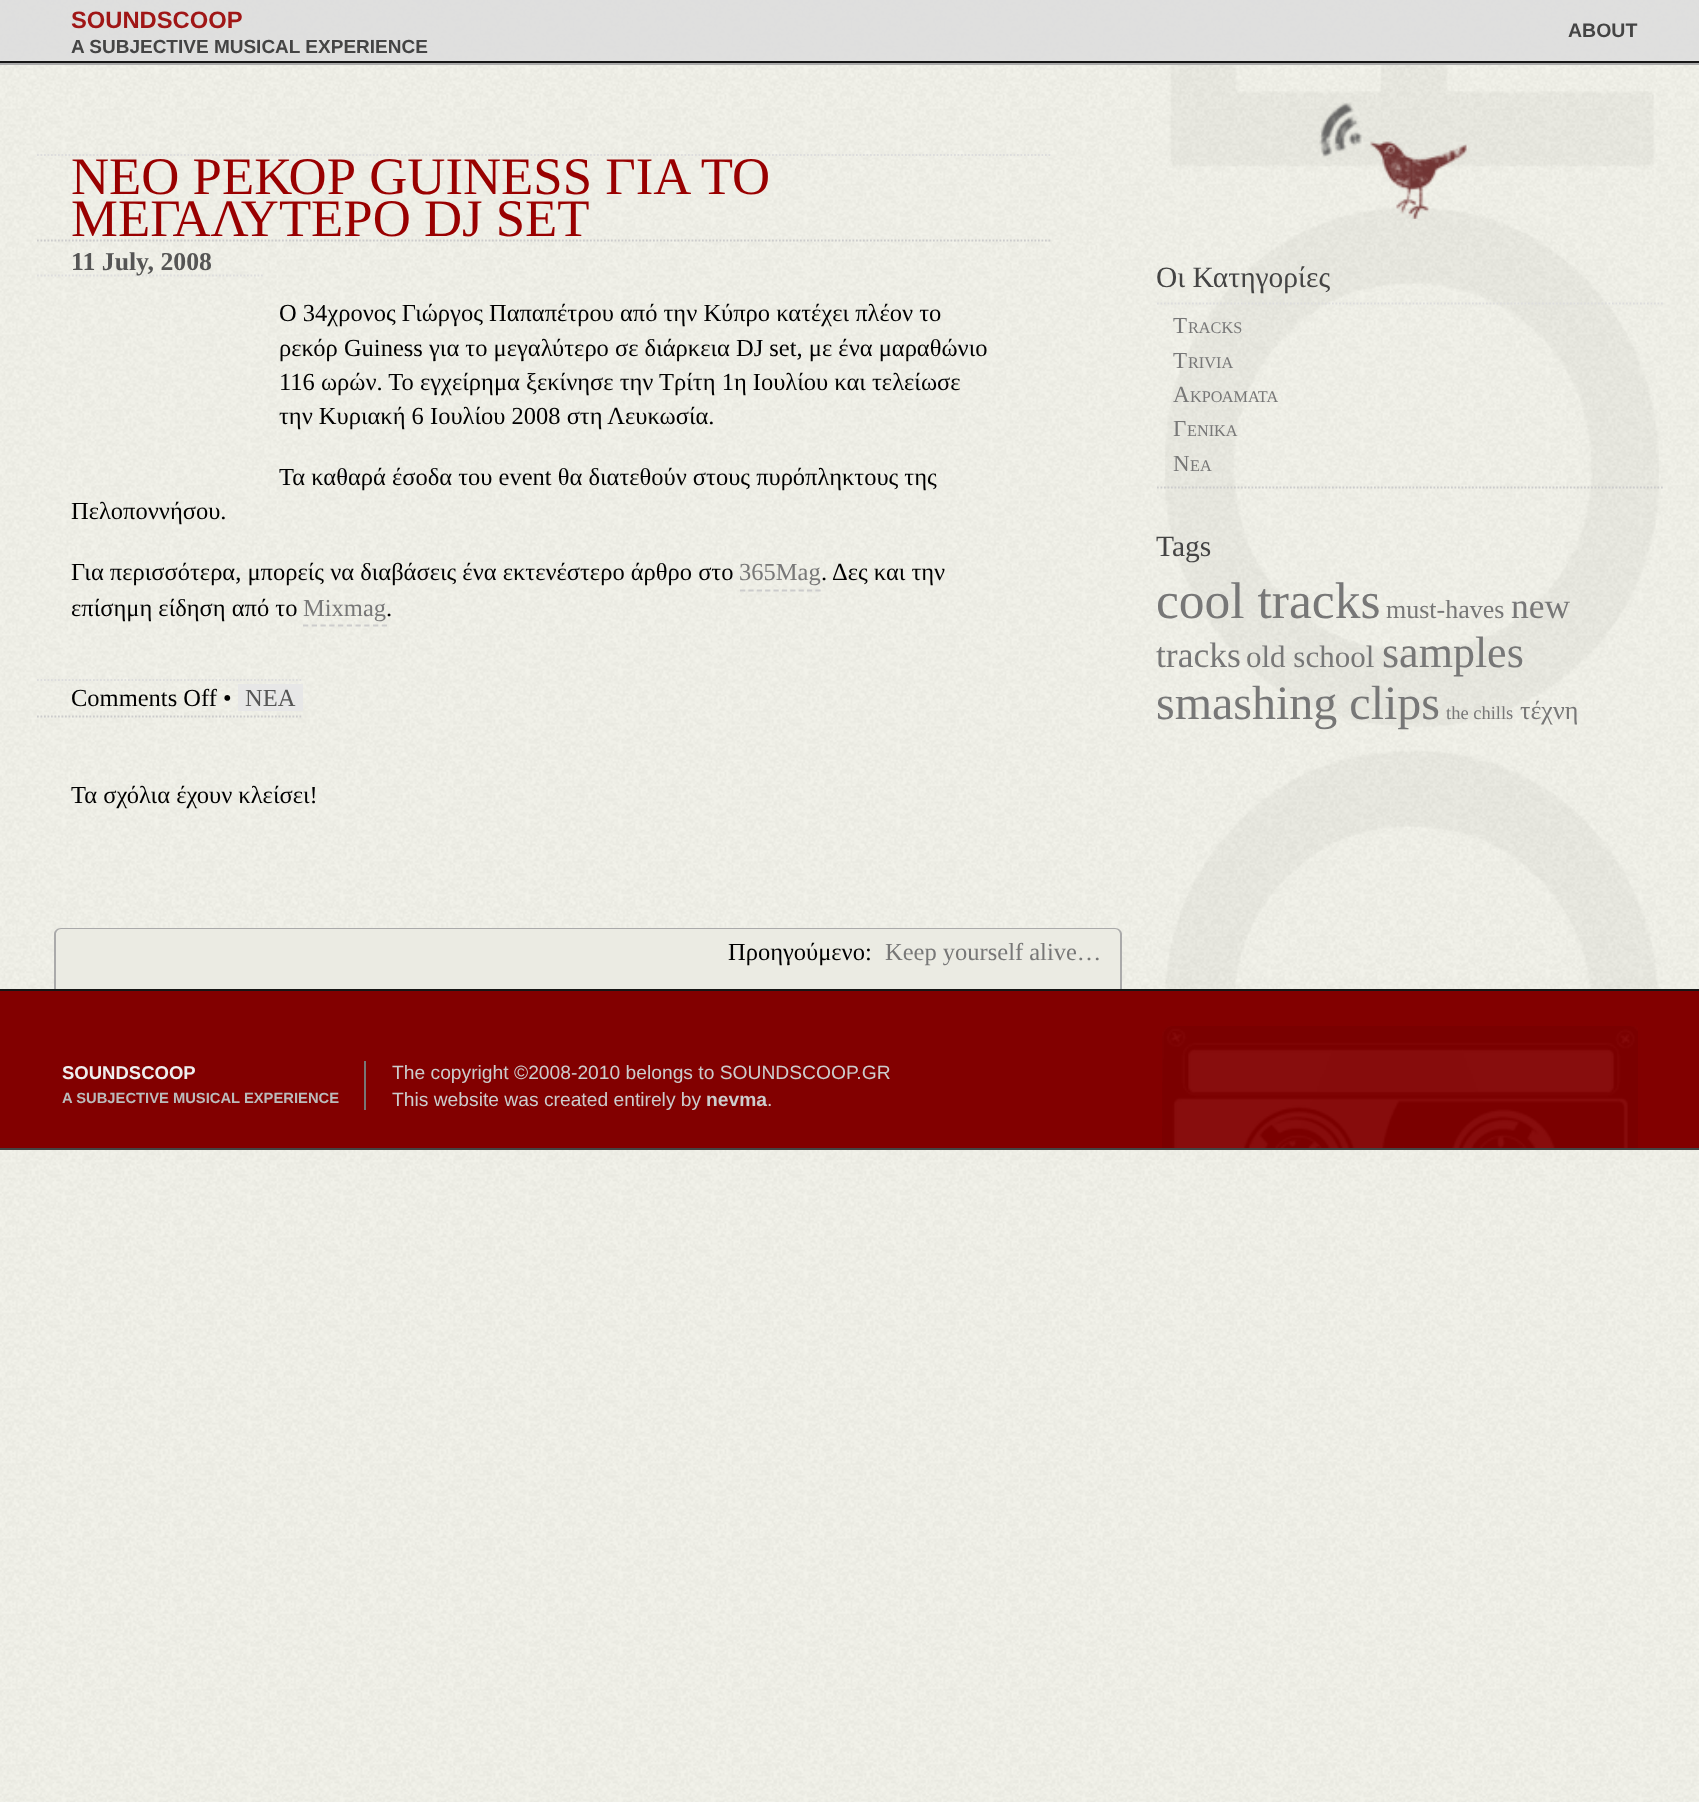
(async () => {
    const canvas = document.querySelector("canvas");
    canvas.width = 1699;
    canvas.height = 1802;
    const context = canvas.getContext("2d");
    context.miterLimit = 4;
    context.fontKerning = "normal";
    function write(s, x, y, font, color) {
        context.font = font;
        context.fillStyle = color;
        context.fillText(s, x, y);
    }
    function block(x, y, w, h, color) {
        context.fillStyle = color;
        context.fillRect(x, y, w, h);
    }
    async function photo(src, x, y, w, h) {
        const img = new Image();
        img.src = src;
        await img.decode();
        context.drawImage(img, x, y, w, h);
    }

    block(0, 0, 1699, 1802, "rgb(255, 255, 255)");
    await photo("media/1.png", 0, 0, 1699, 1802);
    block(0, 0, 1699, 61, "rgba(221, 221, 221, 0.9)");
    block(0, 61, 1699, 2, "rgb(22, 22, 22)");
    write("SOUNDSCOOP", 71, 28, "bold 23.75px Liberation Sans", "rgb(160, 22, 22)");
    write("A SUBJECTIVE MUSICAL EXPERIENCE", 71, 53, "bold 19px Liberation Sans", "rgb(68, 68, 68)");
    write("ABOUT", 1568, 37, "bold 19.5px Liberation Sans", "rgb(68, 68, 68)");
    block(0, 63, 1699, 2, "rgb(170, 170, 170)");
    await photo("media/2.png", 1165, 65, 494, 924);
    context.beginPath();
    context.moveTo(37, 155);
    context.lineTo(1052, 155);
    context.strokeStyle = "rgb(221, 221, 221)";
    context.lineWidth = 1.8;
    context.setLineDash([1.75, 1.75]);
    context.stroke();
    context.beginPath();
    context.moveTo(37, 240.5);
    context.lineTo(1052, 240.5);
    context.strokeStyle = "rgb(204, 204, 204)";
    context.stroke();
    write("ΝΕΟ ΡΕΚΟΡ GUINESS ΓΙΑ ΤΟ", 71, 194, "52.75px Liberation Serif", "rgb(153, 0, 0)");
    write("ΜΕΓΑΛΥΤΕΡΟ DJ SET", 71, 236, "52.75px Liberation Serif", "rgb(153, 0, 0)");
    context.beginPath();
    context.moveTo(37, 275.5);
    context.lineTo(264, 275.5);
    context.strokeStyle = "rgb(221, 221, 221)";
    context.stroke();
    write("11 July, 2008", 71, 270, "bold 25.75px Liberation Serif", "rgb(85, 85, 85)");
    write("Ο 34χρονος Γιώργος Παπαπέτρου από την Kύπρο κατέχει πλέον το", 279, 321, "24.5px Liberation Serif", "rgb(0, 0, 0)");
    write("ρεκόρ Guiness για το μεγαλύτερο σε διάρκεια DJ set, με ένα μαραθώνιο", 279, 356, "24.5px Liberation Serif", "rgb(0, 0, 0)");
    write("116 ωρών. Το εγχείρημα ξεκίνησε την Τρίτη 1η Ιουλίου και τελείωσε", 279, 390, "24.5px Liberation Serif", "rgb(0, 0, 0)");
    write("την Κυριακή 6 Ιουλίου 2008 στη Λευκωσία.", 279, 424, "24.5px Liberation Serif", "rgb(0, 0, 0)");
    write("Τα καθαρά έσοδα του event θα διατεθούν στους πυρόπληκτους της", 279, 485, "24.5px Liberation Serif", "rgb(0, 0, 0)");
    write("Πελοποννήσου.", 71, 519, "24.5px Liberation Serif", "rgb(0, 0, 0)");
    write("Για περισσότερα, μπορείς να διαβάσεις ένα εκτενέστερο άρθρο στο", 71, 580, "24.5px Liberation Serif", "rgb(0, 0, 0)");
    context.beginPath();
    context.moveTo(740, 590.5);
    context.lineTo(821, 590.5);
    context.strokeStyle = "rgb(204, 204, 204)";
    context.setLineDash([5.25, 3.12]);
    context.stroke();
    write("365Mag", 739, 580, "24.5px Liberation Serif", "rgb(119, 119, 119)");
    write(". Δες και την", 821, 580, "24.5px Liberation Serif", "rgb(0, 0, 0)");
    write("επίσημη είδηση από το", 71, 616, "24.5px Liberation Serif", "rgb(0, 0, 0)");
    context.beginPath();
    context.moveTo(303, 625.5);
    context.lineTo(387, 625.5);
    context.setLineDash([5.25, 3.5]);
    context.stroke();
    write("Mixmag", 303, 616, "24.5px Liberation Serif", "rgb(119, 119, 119)");
    write(".", 386, 616, "24.5px Liberation Serif", "rgb(0, 0, 0)");
    context.beginPath();
    context.moveTo(37, 680);
    context.lineTo(303, 680);
    context.strokeStyle = "rgb(221, 221, 221)";
    context.setLineDash([1.75, 1.75]);
    context.stroke();
    context.beginPath();
    context.moveTo(37, 716.5);
    context.lineTo(303, 716.5);
    context.strokeStyle = "rgb(204, 204, 204)";
    context.stroke();
    write("Comments Off •", 71, 706, "24.5px Liberation Serif", "rgb(0, 0, 0)");
    block(238, 684, 65, 27, "rgb(231, 231, 231)");
    write("ΝΕΑ", 245, 706, "24.5px Liberation Serif", "rgb(85, 85, 85)");
    write("Τα σχόλια έχουν κλείσει!", 71, 803, "24.5px Liberation Serif", "rgb(0, 0, 0)");
    context.fillStyle = "rgb(235, 235, 227)";
    context.beginPath();
    context.roundRect(54, 928, 1068, 61, [7, 7, 0, 0]);
    context.fill();
    context.fillStyle = "rgb(170, 170, 170)";
    context.beginPath();
    context.moveTo(61, 928);
    context.lineTo(1115, 928);
    context.bezierCurveTo(1119, 928, 1122, 931, 1122, 934);
    context.lineTo(1122, 989);
    context.lineTo(54, 989);
    context.lineTo(54, 934);
    context.bezierCurveTo(54, 931, 57, 928, 61, 928);
    context.closePath();
    context.moveTo(61, 929);
    context.lineTo(1115, 929);
    context.bezierCurveTo(1118, 929, 1120, 932, 1120, 934);
    context.lineTo(1120, 989);
    context.lineTo(56, 989);
    context.lineTo(56, 934);
    context.bezierCurveTo(56, 932, 58, 929, 61, 929);
    context.closePath();
    context.fill("evenodd");
    write("Προηγούμενο:", 728, 960, "24.5px Liberation Serif", "rgb(0, 0, 0)");
    write("Keep yourself alive…", 885, 960, "24.5px Liberation Serif", "rgb(119, 119, 119)");
    await photo("media/3.png", 1319, 102, 148, 117);
    write("Οι Κατηγορίες", 1156, 287, "29.5px Liberation Serif", "rgb(68, 68, 68)");
    context.beginPath();
    context.moveTo(1157, 303.5);
    context.lineTo(1664, 303.5);
    context.strokeStyle = "rgb(221, 221, 221)";
    context.stroke();
    context.beginPath();
    context.moveTo(1157, 487.5);
    context.lineTo(1664, 487.5);
    context.strokeStyle = "rgb(204, 204, 204)";
    context.stroke();
    write("T", 1173, 333, "23px Liberation Serif", "rgb(119, 119, 119)");
    write("RACKS", 1188, 333, "16.25px Liberation Serif", "rgb(119, 119, 119)");
    write("T", 1173, 368, "23px Liberation Serif", "rgb(119, 119, 119)");
    write("RIVIA", 1188, 368, "16.25px Liberation Serif", "rgb(119, 119, 119)");
    write("Α", 1173, 402, "23px Liberation Serif", "rgb(119, 119, 119)");
    write("ΚΡΟΑΜΑΤΑ", 1190, 402, "16.25px Liberation Serif", "rgb(119, 119, 119)");
    write("Γ", 1173, 436, "23px Liberation Serif", "rgb(119, 119, 119)");
    write("ΕΝΙΚΑ", 1187, 436, "16.25px Liberation Serif", "rgb(119, 119, 119)");
    write("Ν", 1173, 471, "23px Liberation Serif", "rgb(119, 119, 119)");
    write("ΕΑ", 1190, 471, "16.25px Liberation Serif", "rgb(119, 119, 119)");
    write("Tags", 1156, 556, "29.5px Liberation Serif", "rgb(68, 68, 68)");
    write("cool tracks", 1156, 618, "51.5px Liberation Serif", "rgb(119, 119, 119)");
    write("must-haves", 1386, 618, "26px Liberation Serif", "rgb(119, 119, 119)");
    write("new", 1511, 618, "35.5px Liberation Serif", "rgb(119, 119, 119)");
    write("tracks", 1156, 667, "35.5px Liberation Serif", "rgb(119, 119, 119)");
    write("old school", 1246, 667, "31px Liberation Serif", "rgb(119, 119, 119)");
    write("samples", 1382, 667, "44px Liberation Serif", "rgb(119, 119, 119)");
    write("smashing clips", 1156, 719, "48px Liberation Serif", "rgb(119, 119, 119)");
    write("the chills", 1446, 719, "18.5px Liberation Serif", "rgb(119, 119, 119)");
    write("τέχνη", 1520, 719, "26px Liberation Serif", "rgb(119, 119, 119)");
    block(0, 991, 1699, 157, "rgb(130, 0, 0)");
    block(0, 989, 1699, 2, "rgb(21, 21, 21)");
    block(0, 1148, 1699, 2, "rgb(68, 68, 68)");
    await photo("media/4.png", 1162, 1026, 476, 122);
    block(364, 1061, 2, 49, "rgb(119, 119, 119)");
    write("SOUNDSCOOP", 62, 1079, "bold 18.5px Liberation Sans", "rgb(238, 238, 238)");
    write("A SUBJECTIVE MUSICAL EXPERIENCE", 62, 1103, "bold 14.75px Liberation Sans", "rgb(187, 187, 187)");
    write("The copyright ©2008-2010 belongs to SOUNDSCOOP.GR", 392, 1079, "19.25px Liberation Sans", "rgb(204, 204, 204)");
    write("This website was created entirely by", 392, 1106, "19.25px Liberation Sans", "rgb(204, 204, 204)");
    write("nevma", 706, 1106, "bold 19.25px Liberation Sans", "rgb(204, 204, 204)");
    write(".", 767, 1106, "19.25px Liberation Sans", "rgb(204, 204, 204)");
})();
